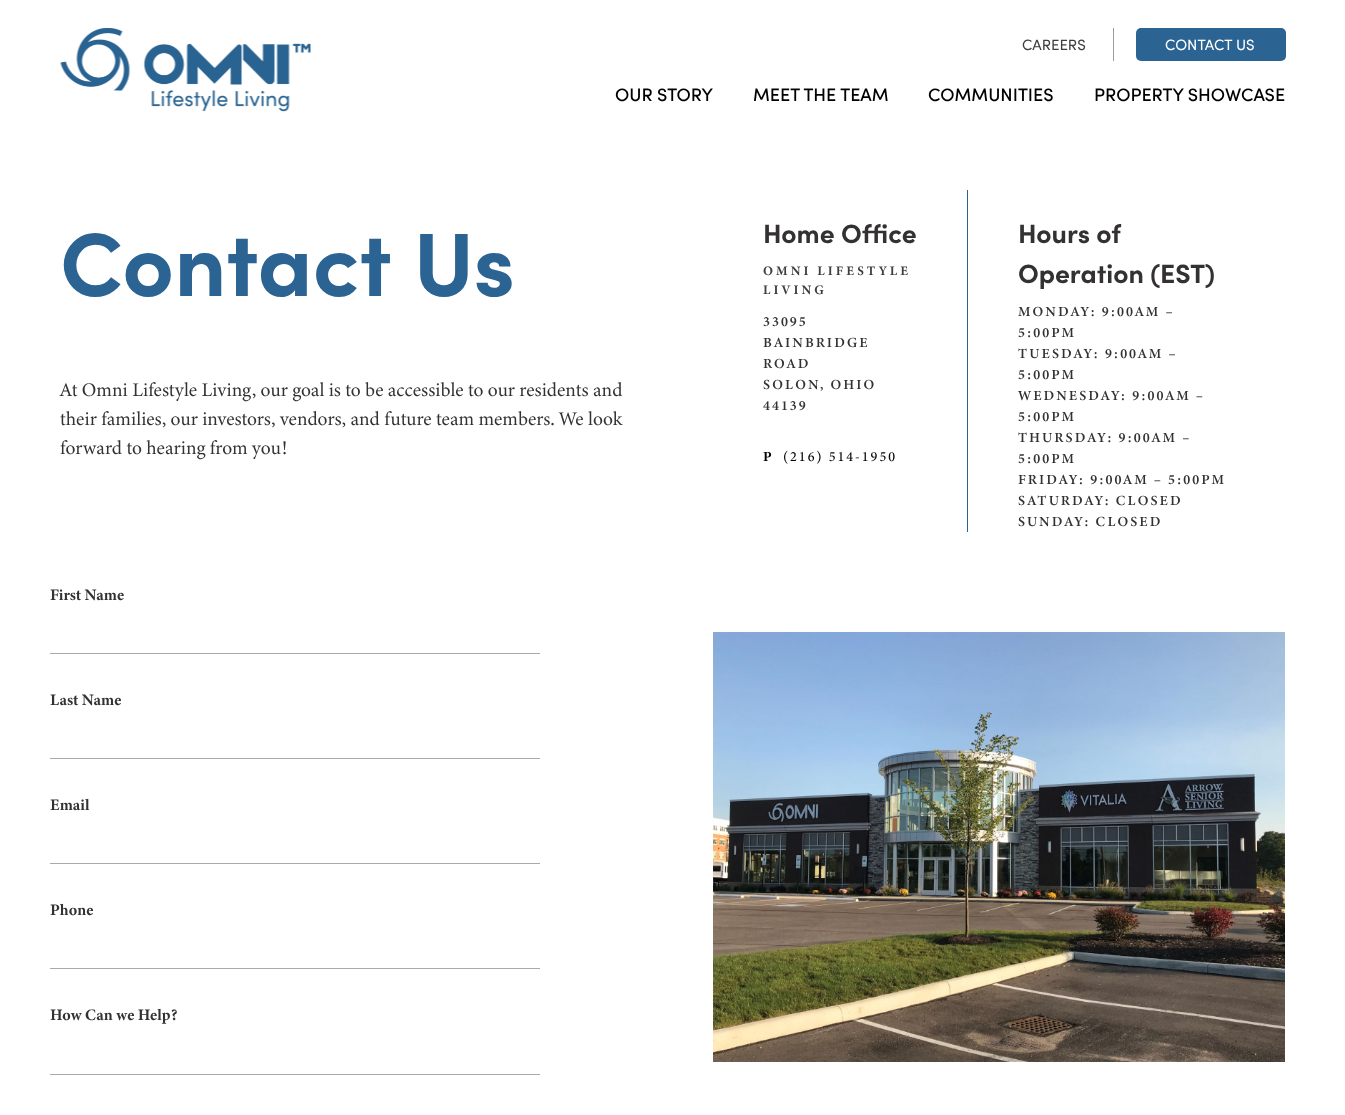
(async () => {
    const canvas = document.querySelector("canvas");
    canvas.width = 1345;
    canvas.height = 1115;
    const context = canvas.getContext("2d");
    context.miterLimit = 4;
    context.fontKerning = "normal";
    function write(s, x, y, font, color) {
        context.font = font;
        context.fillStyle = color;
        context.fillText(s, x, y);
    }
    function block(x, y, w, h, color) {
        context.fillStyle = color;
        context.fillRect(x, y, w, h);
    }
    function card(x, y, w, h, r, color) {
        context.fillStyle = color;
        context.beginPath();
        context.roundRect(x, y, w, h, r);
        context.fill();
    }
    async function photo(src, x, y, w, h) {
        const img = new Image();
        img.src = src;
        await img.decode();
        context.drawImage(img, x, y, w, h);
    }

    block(0, 0, 1345, 1115, "rgb(255, 255, 255)");
    await photo("media/1.png", 60, 28, 251, 84);
    block(1113, 28, 1, 33, "rgb(155, 155, 155)");
    write("CAREERS", 1022, 50, "15px Sofia", "rgb(62, 62, 62)");
    card(1136, 28, 150, 33, 5, "rgb(43, 99, 146)");
    write("CONTACT US", 1165, 50, "15px Sofia", "rgb(255, 255, 255)");
    write("OUR STORY", 615, 101, "500 18px Sofia", "rgb(0, 0, 0)");
    write("MEET THE TEAM", 753, 101, "500 18px Sofia", "rgb(0, 0, 0)");
    write("COMMUNITIES", 928, 101, "500 18px Sofia", "rgb(0, 0, 0)");
    write("PROPERTY SHOWCASE", 1094, 101, "500 18px Sofia", "rgb(0, 0, 0)");
    write("Contact Us", 60, 296, "bold 90px Sofia", "rgb(43, 99, 146)");
    write("At Omni Lifestyle Living, our goal is to be accessible to our residents and", 60, 396, "19.35px 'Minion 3'", "rgb(51, 49, 49)");
    write("their families, our investors, vendors, and future team members. We look", 60, 425, "19.35px 'Minion 3'", "rgb(51, 49, 49)");
    write("forward to hearing from you!", 60, 454, "19.35px 'Minion 3'", "rgb(51, 49, 49)");
    write("First Name", 50, 600, "bold 16px 'Minion 3'", "rgb(51, 49, 49)");
    block(50, 653, 490, 1, "rgb(169, 169, 169)");
    write("Last Name", 50, 705, "bold 16px 'Minion 3'", "rgb(51, 49, 49)");
    block(50, 758, 490, 1, "rgb(169, 169, 169)");
    write("Email", 50, 810, "bold 16px 'Minion 3'", "rgb(51, 49, 49)");
    block(50, 863, 490, 1, "rgb(169, 169, 169)");
    write("Phone", 50, 915, "bold 16px 'Minion 3'", "rgb(51, 49, 49)");
    block(50, 968, 490, 1, "rgb(169, 169, 169)");
    write("How Can we Help?", 50, 1020, "bold 16px 'Minion 3'", "rgb(51, 49, 49)");
    block(50, 1074, 490, 1, "rgb(169, 169, 169)");
    block(967, 190, 1, 342, "rgb(43, 99, 146)");
    write("Home Office", 763, 243, "bold 26.5px Sofia", "rgb(51, 49, 49)");
    context.letterSpacing = "3px";
    write("OMNI LIFESTYLE", 763, 275, "bold 13px 'Minion 3'", "rgb(62, 62, 62)");
    write("LIVING", 763, 294, "bold 13px 'Minion 3'", "rgb(62, 62, 62)");
    context.letterSpacing = "2px";
    write("33095", 763, 326, "600 14px 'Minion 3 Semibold'", "rgb(51, 49, 49)");
    write("BAINBRIDGE", 763, 347, "600 14px 'Minion 3 Semibold'", "rgb(51, 49, 49)");
    write("ROAD", 763, 368, "600 14px 'Minion 3 Semibold'", "rgb(51, 49, 49)");
    write("SOLON, OHIO", 763, 389, "600 14px 'Minion 3 Semibold'", "rgb(51, 49, 49)");
    write("44139", 763, 410, "600 14px 'Minion 3 Semibold'", "rgb(51, 49, 49)");
    write("P", 763, 461, "bold 14px 'Minion 3'", "rgb(0, 0, 0)");
    write("(216) 514-1950", 783, 461, "500 14px 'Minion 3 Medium'", "rgb(0, 0, 0)");
    context.letterSpacing = "0px";
    write("Hours of", 1018, 243, "bold 26.5px Sofia", "rgb(51, 49, 49)");
    write("Operation (EST)", 1018, 283, "bold 26.5px Sofia", "rgb(51, 49, 49)");
    context.letterSpacing = "2px";
    write("MONDAY: 9:00AM –", 1018, 316, "600 14px 'Minion 3 Semibold'", "rgb(51, 49, 49)");
    write("5:00PM", 1018, 337, "600 14px 'Minion 3 Semibold'", "rgb(51, 49, 49)");
    write("TUESDAY: 9:00AM –", 1018, 358, "600 14px 'Minion 3 Semibold'", "rgb(51, 49, 49)");
    write("5:00PM", 1018, 379, "600 14px 'Minion 3 Semibold'", "rgb(51, 49, 49)");
    write("WEDNESDAY: 9:00AM –", 1018, 400, "600 14px 'Minion 3 Semibold'", "rgb(51, 49, 49)");
    write("5:00PM", 1018, 421, "600 14px 'Minion 3 Semibold'", "rgb(51, 49, 49)");
    write("THURSDAY: 9:00AM –", 1018, 442, "600 14px 'Minion 3 Semibold'", "rgb(51, 49, 49)");
    write("5:00PM", 1018, 463, "600 14px 'Minion 3 Semibold'", "rgb(51, 49, 49)");
    write("FRIDAY: 9:00AM – 5:00PM", 1018, 484, "600 14px 'Minion 3 Semibold'", "rgb(51, 49, 49)");
    write("SATURDAY: CLOSED", 1018, 505, "600 14px 'Minion 3 Semibold'", "rgb(51, 49, 49)");
    write("SUNDAY: CLOSED", 1018, 526, "600 14px 'Minion 3 Semibold'", "rgb(51, 49, 49)");
    await photo("media/2.png", 713, 632, 572, 430);
})();
